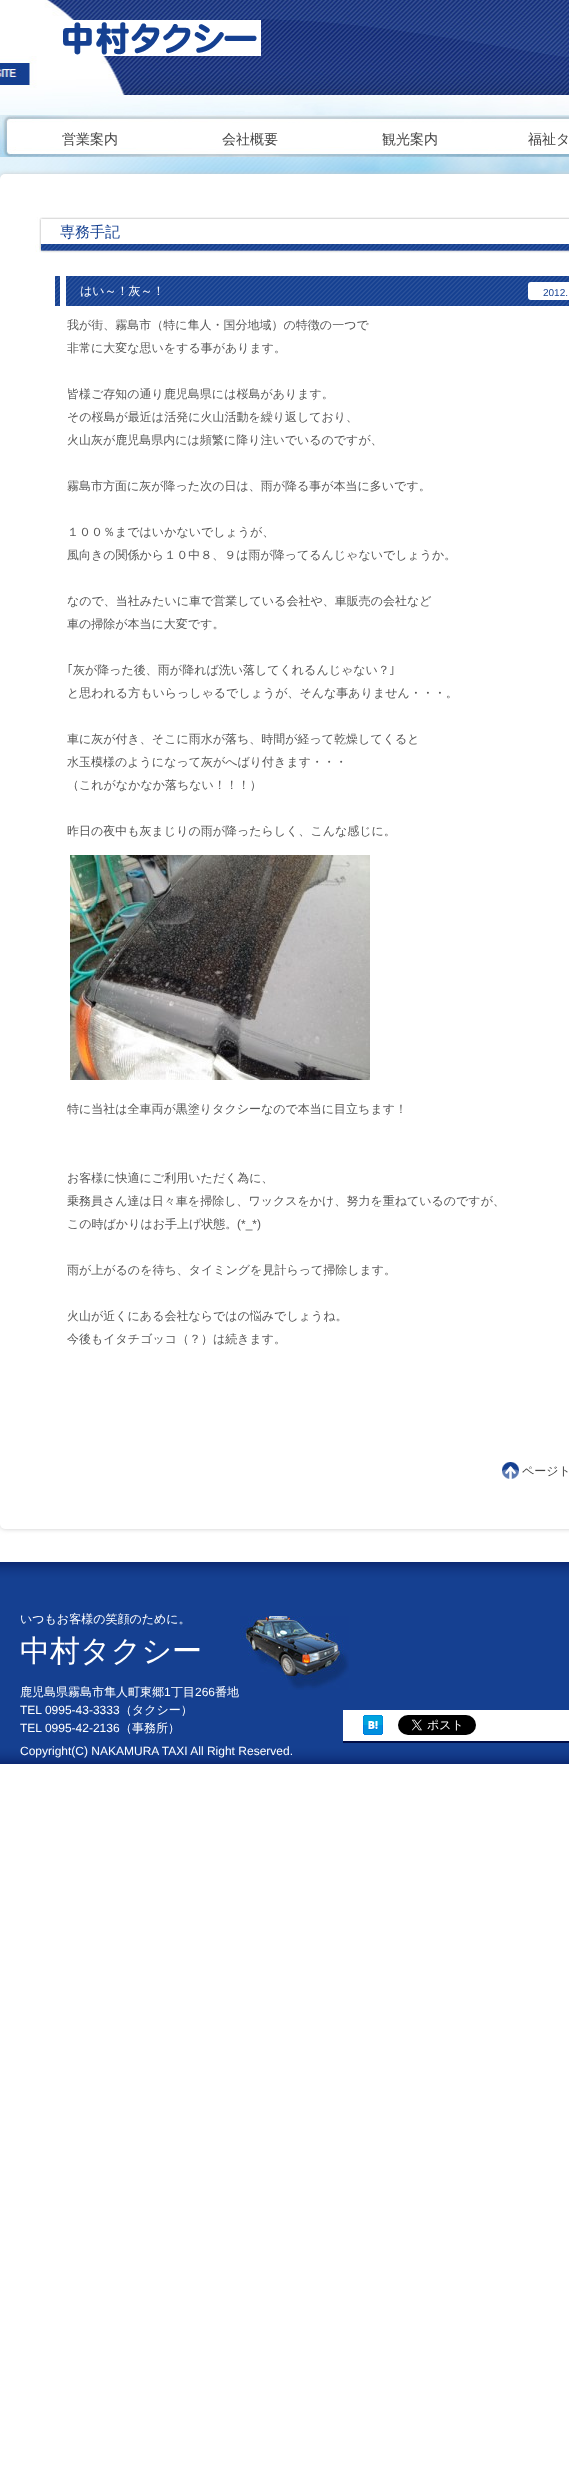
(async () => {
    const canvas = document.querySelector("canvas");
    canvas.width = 569;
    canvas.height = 2467;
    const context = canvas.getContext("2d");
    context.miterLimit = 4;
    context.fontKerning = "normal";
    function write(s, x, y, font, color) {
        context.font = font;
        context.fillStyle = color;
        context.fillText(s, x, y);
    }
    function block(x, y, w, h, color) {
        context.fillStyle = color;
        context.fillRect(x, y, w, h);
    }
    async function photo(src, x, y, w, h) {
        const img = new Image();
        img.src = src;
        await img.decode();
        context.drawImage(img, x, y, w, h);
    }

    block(0, 0, 569, 2467, "rgb(255, 255, 255)");
    await photo("media/1.png", 0, 0, 569, 179);
    await photo("media/2.png", 63, 20, 198, 36);
    await photo("media/3.png", 0, 115, 569, 42);
    write("営業案内", 62, 144, "500 14px WenQuanYi Zen Hei", "rgb(68, 68, 68)");
    write("会社概要", 222, 144, "500 14px WenQuanYi Zen Hei", "rgb(68, 68, 68)");
    write("観光案内", 382, 144, "500 14px WenQuanYi Zen Hei", "rgb(68, 68, 68)");
    write("福祉タ", 528, 144, "500 14px WenQuanYi Zen Hei", "rgb(68, 68, 68)");
    context.fillStyle = "rgb(204, 204, 204)";
    context.filter = "blur(2.5px)";
    context.beginPath();
    context.roundRect(0, 174, 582, 1355, 5);
    context.fill();
    context.filter = "none";
    context.fillStyle = "rgb(255, 255, 255)";
    context.beginPath();
    context.roundRect(0, 174, 569, 1355, [5, 0, 0, 5]);
    context.fill();
    await photo("media/4.png", 35, 217, 534, 36);
    write("専務手記", 60, 237, "500 15px WenQuanYi Zen Hei", "rgb(21, 64, 145)");
    await photo("media/5.png", 55, 276, 514, 30);
    write("はい～！灰～！", 80, 295, "500 12px WenQuanYi Zen Hei", "rgb(255, 255, 255)");
    context.beginPath();
    context.roundRect(528, 282, 41, 18, [3, 0, 0, 3]);
    context.fill();
    write("2012.", 543, 296, "10px Liberation Sans", "rgb(21, 64, 145)");
    write("我が街、霧島市（特に隼人・国分地域）の特徴の一つで", 67, 329, "500 12px WenQuanYi Zen Hei", "rgb(87, 87, 87)");
    write("非常に大変な思いをする事があります。", 67, 352, "500 12px WenQuanYi Zen Hei", "rgb(87, 87, 87)");
    write("皆様ご存知の通り鹿児島県には桜島があります。", 67, 398, "500 12px WenQuanYi Zen Hei", "rgb(87, 87, 87)");
    write("その桜島が最近は活発に火山活動を繰り返しており、", 67, 421, "500 12px WenQuanYi Zen Hei", "rgb(87, 87, 87)");
    write("火山灰が鹿児島県内には頻繁に降り注いでいるのですが、", 67, 444, "500 12px WenQuanYi Zen Hei", "rgb(87, 87, 87)");
    write("霧島市方面に灰が降った次の日は、雨が降る事が本当に多いです。", 67, 490, "500 12px WenQuanYi Zen Hei", "rgb(87, 87, 87)");
    write("１００％まではいかないでしょうが、", 67, 536, "500 12px WenQuanYi Zen Hei", "rgb(87, 87, 87)");
    write("風向きの関係から１０中８、９は雨が降ってるんじゃないでしょうか。", 67, 559, "500 12px WenQuanYi Zen Hei", "rgb(87, 87, 87)");
    write("なので、当社みたいに車で営業している会社や、車販売の会社など", 67, 605, "500 12px WenQuanYi Zen Hei", "rgb(87, 87, 87)");
    write("車の掃除が本当に大変です。", 67, 628, "500 12px WenQuanYi Zen Hei", "rgb(87, 87, 87)");
    write("｢", 67, 674, "12px IPAGothic", "rgb(87, 87, 87)");
    write("灰が降った後、雨が降れば洗い落してくれるんじゃない？", 73, 674, "500 12px WenQuanYi Zen Hei", "rgb(87, 87, 87)");
    write("｣", 389, 674, "12px IPAGothic", "rgb(87, 87, 87)");
    write("と思われる方もいらっしゃるでしょうが、そんな事ありません・・・。", 67, 697, "500 12px WenQuanYi Zen Hei", "rgb(87, 87, 87)");
    write("車に灰が付き、そこに雨水が落ち、時間が経って乾燥してくると", 67, 743, "500 12px WenQuanYi Zen Hei", "rgb(87, 87, 87)");
    write("水玉模様のようになって灰がへばり付きます・・・", 67, 766, "500 12px WenQuanYi Zen Hei", "rgb(87, 87, 87)");
    write("（これがなかなか落ちない！！！）", 67, 789, "500 12px WenQuanYi Zen Hei", "rgb(87, 87, 87)");
    write("昨日の夜中も灰まじりの雨が降ったらしく、こんな感じに。", 67, 835, "500 12px WenQuanYi Zen Hei", "rgb(87, 87, 87)");
    await photo("media/6.png", 70, 855, 300, 225);
    context.save();
    context.beginPath();
    context.rect(67, 316, 502, 1106);
    context.clip();
    write("特に当社は全車両が黒塗りタクシーなので本当に目立ちます！", 67, 1113, "500 12px WenQuanYi Zen Hei", "rgb(87, 87, 87)");
    context.restore();
    write("お客様に快適にご利用いただく為に、", 67, 1182, "500 12px WenQuanYi Zen Hei", "rgb(87, 87, 87)");
    write("乗務員さん達は日々車を掃除し、ワックスをかけ、努力を重ねているのですが、", 67, 1205, "500 12px WenQuanYi Zen Hei", "rgb(87, 87, 87)");
    write("この時ばかりはお手上げ状態。", 67, 1228, "500 12px WenQuanYi Zen Hei", "rgb(87, 87, 87)");
    write("(*_*)", 237, 1228, "12px Liberation Sans", "rgb(87, 87, 87)");
    write("雨が上がるのを待ち、タイミングを見計らって掃除します。", 67, 1274, "500 12px WenQuanYi Zen Hei", "rgb(87, 87, 87)");
    write("火山が近くにある会社ならではの悩みでしょうね。", 67, 1320, "500 12px WenQuanYi Zen Hei", "rgb(87, 87, 87)");
    write("今後もイタチゴッコ（？）は続きます。", 67, 1343, "500 12px WenQuanYi Zen Hei", "rgb(87, 87, 87)");
    await photo("media/7.png", 502, 1462, 17, 17);
    write("ページト", 522, 1475, "500 12px WenQuanYi Zen Hei", "rgb(68, 68, 68)");
    await photo("media/8.png", 0, 1562, 569, 202);
    await photo("media/9.png", 240, 1616, 109, 74);
    write("いつもお客様の笑顔のために。", 20, 1623, "500 12px WenQuanYi Zen Hei", "rgb(255, 255, 255)");
    write("中村タクシー", 20, 1661, "500 30px WenQuanYi Zen Hei", "rgb(255, 255, 255)");
    write("鹿児島県霧島市隼人町東郷", 20, 1696, "500 12px WenQuanYi Zen Hei", "rgb(255, 255, 255)");
    write("1", 164, 1696, "12px Liberation Sans", "rgb(255, 255, 255)");
    write("丁目", 171, 1696, "500 12px WenQuanYi Zen Hei", "rgb(255, 255, 255)");
    write("266", 195, 1696, "12px Liberation Sans", "rgb(255, 255, 255)");
    write("番地", 215, 1696, "500 12px WenQuanYi Zen Hei", "rgb(255, 255, 255)");
    write("TEL 0995-43-3333", 20, 1714, "12px Liberation Sans", "rgb(255, 255, 255)");
    write("（タクシー）", 120, 1714, "500 12px WenQuanYi Zen Hei", "rgb(255, 255, 255)");
    write("TEL 0995-42-2136", 20, 1732, "12px Liberation Sans", "rgb(255, 255, 255)");
    write("（事務所）", 120, 1732, "500 12px WenQuanYi Zen Hei", "rgb(255, 255, 255)");
    write("Copyright(C) NAKAMURA TAXI All Right Reserved.", 20, 1755, "12px Liberation Sans", "rgb(255, 255, 255)");
    block(343, 1710, 226, 31, "rgb(255, 255, 255)");
    block(343, 1741, 226, 2, "rgb(2, 14, 70)");
    await photo("media/10.png", 363, 1715, 20, 20);
    await photo("media/11.png", 398, 1715, 78, 20);
})();
